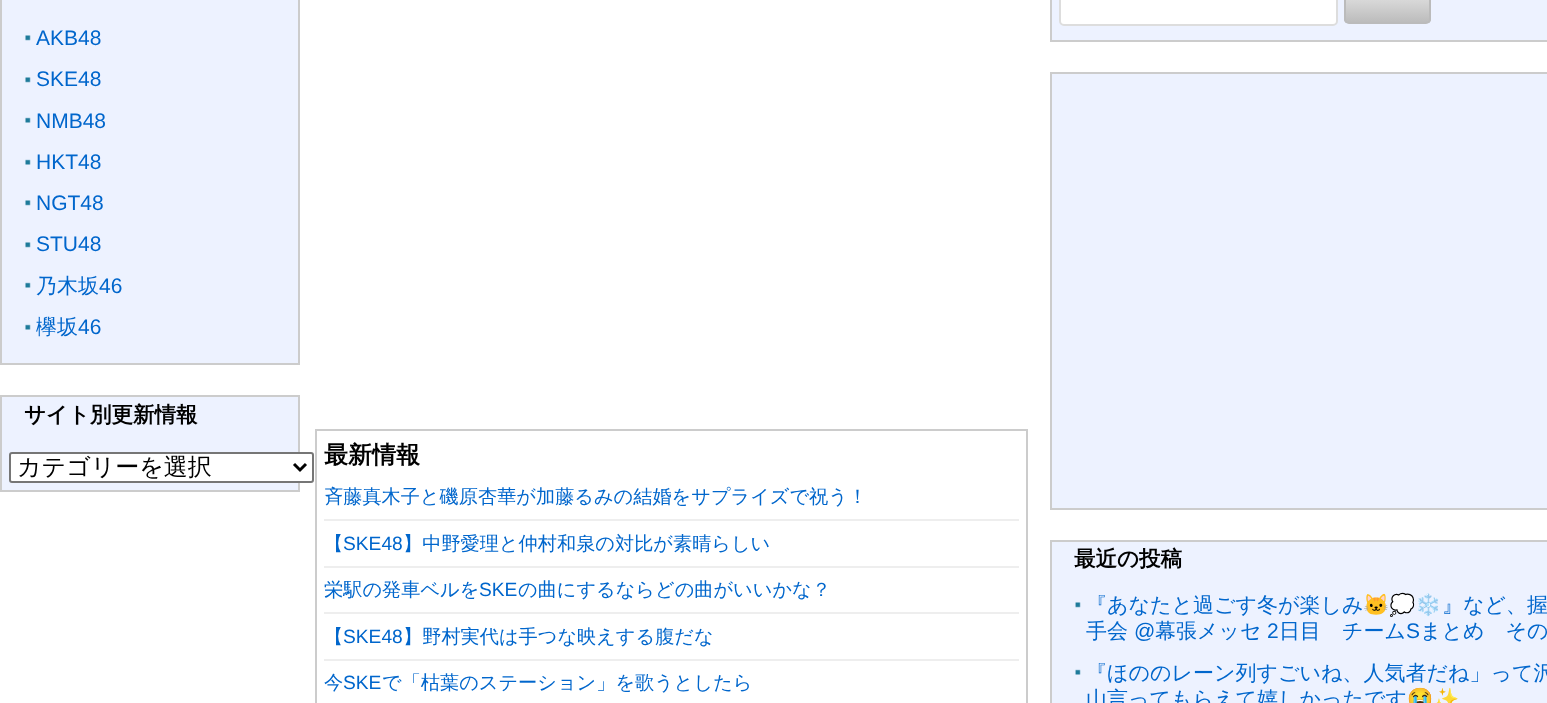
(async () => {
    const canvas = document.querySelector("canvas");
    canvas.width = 1547;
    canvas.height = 703;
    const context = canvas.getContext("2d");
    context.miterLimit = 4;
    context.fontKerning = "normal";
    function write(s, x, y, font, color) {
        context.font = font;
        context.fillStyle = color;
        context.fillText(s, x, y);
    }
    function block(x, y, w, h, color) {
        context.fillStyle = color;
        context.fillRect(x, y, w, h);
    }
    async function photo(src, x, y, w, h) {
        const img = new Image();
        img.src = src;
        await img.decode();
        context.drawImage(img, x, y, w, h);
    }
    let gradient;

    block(0, 0, 1547, 703, "rgb(255, 255, 255)");
    context.fillStyle = "rgb(237, 242, 255)";
    context.beginPath();
    context.rect(1, -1, 298, 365);
    context.fill();
    context.strokeStyle = "rgb(204, 204, 204)";
    context.lineWidth = 2;
    context.stroke();
    await photo("media/1.png", 25, 35, 6, 6);
    write("AKB48", 36, 45, "21px Liberation Sans", "rgb(0, 102, 204)");
    await photo("media/1.png", 25, 77, 6, 6);
    write("SKE48", 36, 86, "21px Liberation Sans", "rgb(0, 102, 204)");
    await photo("media/2.png", 25, 117, 6, 6);
    write("NMB48", 36, 128, "21px Liberation Sans", "rgb(0, 102, 204)");
    await photo("media/2.png", 25, 159, 6, 6);
    write("HKT48", 36, 169, "21px Liberation Sans", "rgb(0, 102, 204)");
    await photo("media/1.png", 25, 200, 6, 6);
    write("NGT48", 36, 210, "21px Liberation Sans", "rgb(0, 102, 204)");
    await photo("media/1.png", 25, 242, 6, 6);
    write("STU48", 36, 251, "21px Liberation Sans", "rgb(0, 102, 204)");
    await photo("media/2.png", 25, 282, 6, 6);
    write("乃木坂", 36, 293, "500 21px WenQuanYi Zen Hei", "rgb(0, 102, 204)");
    write("46", 99, 293, "21px Liberation Sans", "rgb(0, 102, 204)");
    await photo("media/2.png", 25, 324, 6, 6);
    write("欅坂", 36, 334, "500 21px WenQuanYi Zen Hei", "rgb(0, 102, 204)");
    write("46", 78, 334, "21px Liberation Sans", "rgb(0, 102, 204)");
    context.fillStyle = "rgb(237, 242, 255)";
    context.beginPath();
    context.rect(1, 396, 298, 95);
    context.fill();
    context.stroke();
    write("サイト別更新情報", 24, 422, "bold 21.5px WenQuanYi Zen Hei", "rgb(0, 0, 0)");
    context.fillStyle = "rgb(255, 255, 255)";
    context.beginPath();
    context.roundRect(10, 453, 303, 29, 2);
    context.fill();
    context.strokeStyle = "rgb(118, 118, 118)";
    context.stroke();
    context.beginPath();
    context.moveTo(294, 464);
    context.lineTo(300, 470);
    context.lineTo(306, 464);
    context.strokeStyle = "rgb(0, 0, 0)";
    context.lineWidth = 3;
    context.stroke();
    write("カテゴリーを選択", 17, 475, "500 24px WenQuanYi Zen Hei", "rgb(0, 0, 0)");
    context.strokeStyle = "rgb(204, 204, 204)";
    context.lineWidth = 2;
    context.strokeRect(316, 430, 711, 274);
    write("最新情報", 324, 463, "bold 24px WenQuanYi Zen Hei", "rgb(0, 0, 0)");
    block(324, 519, 695, 2, "rgb(238, 238, 238)");
    write("斉藤真木子と磯原杏華が加藤るみの結婚をサプライズで祝う！", 324, 503, "500 19.2px WenQuanYi Zen Hei", "rgb(0, 102, 204)");
    block(324, 566, 695, 2, "rgb(238, 238, 238)");
    write("【", 324, 550, "500 19.2px WenQuanYi Zen Hei", "rgb(0, 102, 204)");
    write("SKE48", 343, 550, "19.2px Liberation Sans", "rgb(0, 102, 204)");
    write("】中野愛理と仲村和泉の対比が素晴らしい", 403, 550, "500 19.2px WenQuanYi Zen Hei", "rgb(0, 102, 204)");
    block(324, 612, 695, 2, "rgb(238, 238, 238)");
    write("栄駅の発車ベルを", 324, 596, "500 19.2px WenQuanYi Zen Hei", "rgb(0, 102, 204)");
    write("SKE", 479, 596, "19.2px Liberation Sans", "rgb(0, 102, 204)");
    write("の曲にするならどの曲がいいかな？", 518, 596, "500 19.2px WenQuanYi Zen Hei", "rgb(0, 102, 204)");
    block(324, 659, 695, 2, "rgb(238, 238, 238)");
    write("【", 324, 643, "500 19.2px WenQuanYi Zen Hei", "rgb(0, 102, 204)");
    write("SKE48", 343, 643, "19.2px Liberation Sans", "rgb(0, 102, 204)");
    write("】野村実代は手つな映えする腹だな", 403, 643, "500 19.2px WenQuanYi Zen Hei", "rgb(0, 102, 204)");
    write("今", 324, 689, "500 19.2px WenQuanYi Zen Hei", "rgb(0, 102, 204)");
    write("SKE", 343, 689, "19.2px Liberation Sans", "rgb(0, 102, 204)");
    write("で「枯葉のステーション」を歌うとしたら", 382, 689, "500 19.2px WenQuanYi Zen Hei", "rgb(0, 102, 204)");
    context.fillStyle = "rgb(237, 242, 255)";
    context.beginPath();
    context.rect(1051, -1, 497, 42);
    context.fill();
    context.stroke();
    context.fillStyle = "rgb(255, 255, 255)";
    context.beginPath();
    context.roundRect(1060, -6, 277, 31, 4);
    context.fill();
    context.strokeStyle = "rgb(221, 221, 221)";
    context.stroke();
    context.save();
    context.beginPath();
    context.roundRect(1344, -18, 87, 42, 5);
    context.clip();
    gradient = context.createLinearGradient(1388, -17, 1388, 23);
    gradient.addColorStop(0, "rgb(238, 238, 238)");
    gradient.addColorStop(1, "rgb(187, 187, 187)");
    context.fillStyle = gradient;
    context.fillRect(1344, 0, 87, 23);
    context.restore();
    context.beginPath();
    context.roundRect(1345, -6, 85, 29, 4);
    context.strokeStyle = "rgb(187, 187, 187)";
    context.stroke();
    context.fillStyle = "rgb(237, 242, 255)";
    context.beginPath();
    context.rect(1051, 73, 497, 436);
    context.fill();
    context.strokeStyle = "rgb(204, 204, 204)";
    context.stroke();
    context.beginPath();
    context.rect(1051, 541, 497, 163);
    context.fill();
    context.stroke();
    write("最近の投稿", 1074, 566, "bold 21.5px WenQuanYi Zen Hei", "rgb(0, 0, 0)");
    await photo("media/3.png", 1075, 602, 6, 6);
    write("『あなたと過ごす冬が楽しみ", 1086, 612, "500 21px WenQuanYi Zen Hei", "rgb(0, 102, 204)");
    write("🐱💭❄️", 1363, 612, "21px Noto Color Emoji", "rgb(0, 102, 204)");
    write("』など、握", 1442, 612, "500 21px WenQuanYi Zen Hei", "rgb(0, 102, 204)");
    write("手会", 1086, 638, "500 21px WenQuanYi Zen Hei", "rgb(0, 102, 204)");
    write("@", 1134, 638, "21px Liberation Sans", "rgb(0, 102, 204)");
    write("幕張メッセ", 1155, 638, "500 21px WenQuanYi Zen Hei", "rgb(0, 102, 204)");
    write("2", 1267, 638, "21px Liberation Sans", "rgb(0, 102, 204)");
    write("日目　チーム", 1279, 638, "500 21px WenQuanYi Zen Hei", "rgb(0, 102, 204)");
    write("S", 1406, 638, "21px Liberation Sans", "rgb(0, 102, 204)");
    write("まとめ　その", 1420, 638, "500 21px WenQuanYi Zen Hei", "rgb(0, 102, 204)");
    await photo("media/4.png", 1075, 669, 6, 6);
    write("『ほののレーン列すごいね、人気者だね」って沢", 1086, 680, "500 21px WenQuanYi Zen Hei", "rgb(0, 102, 204)");
    write("山言ってもらえて嬉しかったです", 1086, 706, "500 21px WenQuanYi Zen Hei", "rgb(0, 102, 204)");
    write("😭✨", 1407, 706, "21px Noto Color Emoji", "rgb(0, 102, 204)");
})();
